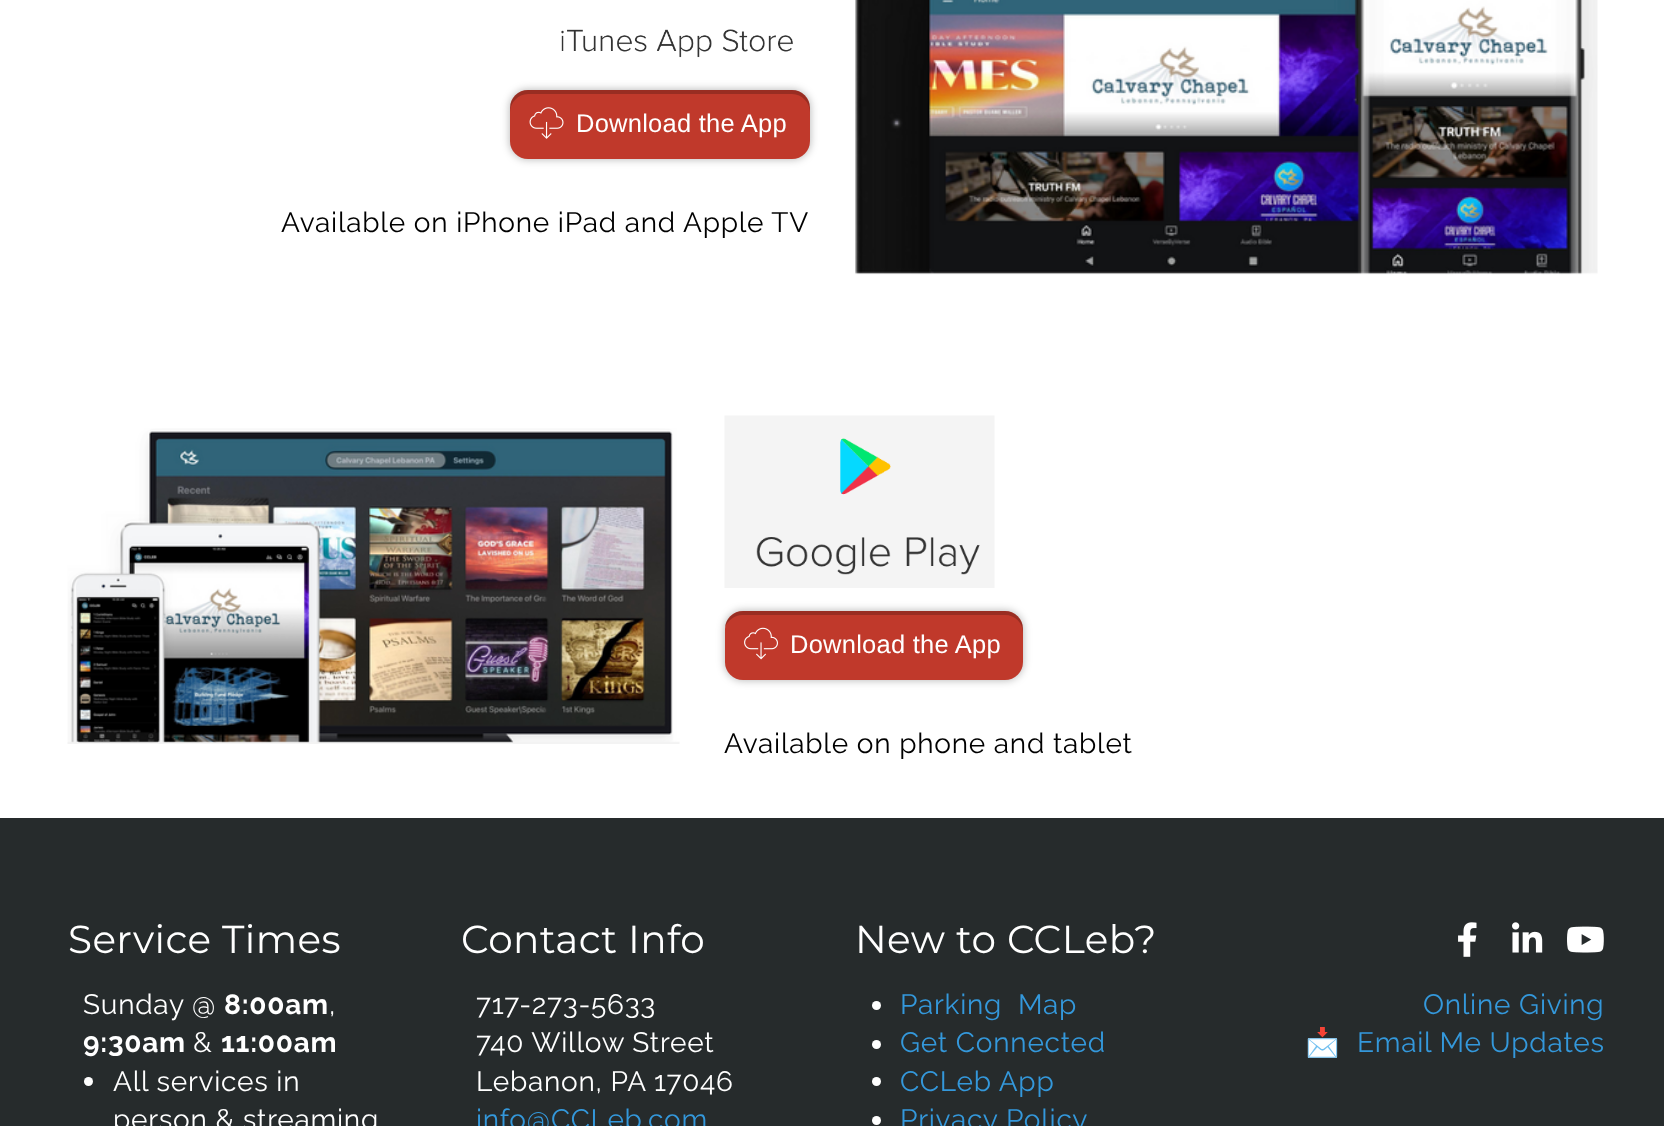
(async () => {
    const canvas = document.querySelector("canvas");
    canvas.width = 1664;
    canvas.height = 1126;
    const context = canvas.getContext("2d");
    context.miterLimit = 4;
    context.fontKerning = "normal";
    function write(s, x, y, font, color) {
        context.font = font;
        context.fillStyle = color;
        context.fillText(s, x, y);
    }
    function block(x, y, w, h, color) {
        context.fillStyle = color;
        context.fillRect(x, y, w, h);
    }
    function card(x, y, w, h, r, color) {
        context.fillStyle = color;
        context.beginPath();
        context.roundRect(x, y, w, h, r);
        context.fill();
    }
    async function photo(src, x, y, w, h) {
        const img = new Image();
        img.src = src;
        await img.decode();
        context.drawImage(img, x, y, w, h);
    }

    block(0, 0, 1664, 1126, "rgb(255, 255, 255)");
    await photo("media/1.png", 561, 29, 232, 29);
    context.fillStyle = "rgba(0, 0, 0, 0.3)";
    context.filter = "blur(4px)";
    context.beginPath();
    context.roundRect(510, 90, 300, 69, 18);
    context.fill();
    context.filter = "none";
    card(510, 90, 300, 69, 18, "rgb(192, 57, 43)");
    context.fillStyle = "rgba(0, 0, 0, 0.2)";
    context.beginPath();
    context.moveTo(528, 94);
    context.lineTo(792, 94);
    context.bezierCurveTo(802, 94, 810, 103, 810, 112);
    context.lineTo(810, 108);
    context.bezierCurveTo(810, 98, 802, 90, 792, 90);
    context.lineTo(528, 90);
    context.bezierCurveTo(518, 90, 510, 98, 510, 108);
    context.lineTo(510, 112);
    context.bezierCurveTo(510, 103, 518, 94, 528, 94);
    context.closePath();
    context.fill();
    await photo("media/2.png", 529, 107, 35, 32);
    context.letterSpacing = "0.25px";
    write("Download the App", 576, 132, "25.5px Liberation Sans", "rgb(255, 255, 255)");
    context.letterSpacing = "0.75px";
    write("Available on iPhone iPad and Apple TV", 281, 232, "28px Raleway", "rgb(0, 0, 0)");
    await photo("media/3.png", 855, 0, 743, 275);
    await photo("media/4.png", 67, 428, 613, 316);
    await photo("media/5.png", 724, 415, 271, 173);
    context.fillStyle = "rgba(0, 0, 0, 0.3)";
    context.filter = "blur(4px)";
    context.beginPath();
    context.roundRect(725, 611, 298, 69, 18);
    context.fill();
    context.filter = "none";
    card(725, 611, 298, 69, 18, "rgb(192, 57, 43)");
    context.fillStyle = "rgba(0, 0, 0, 0.2)";
    context.beginPath();
    context.moveTo(742, 615);
    context.lineTo(1005, 615);
    context.bezierCurveTo(1015, 615, 1023, 623, 1023, 633);
    context.lineTo(1023, 629);
    context.bezierCurveTo(1023, 619, 1015, 611, 1005, 611);
    context.lineTo(743, 611);
    context.bezierCurveTo(734, 611, 726, 618, 725, 627);
    context.bezierCurveTo(728, 620, 735, 615, 742, 615);
    context.closePath();
    context.fill();
    await photo("media/6.png", 744, 627, 34, 33);
    context.letterSpacing = "0.25px";
    write("Download the App", 790, 653, "25.5px Liberation Sans", "rgb(255, 255, 255)");
    context.letterSpacing = "0.75px";
    write("Available on phone and tablet", 724, 753, "28px Raleway", "rgb(0, 0, 0)");
    block(0, 818, 1664, 308, "rgb(38, 43, 44)");
    context.letterSpacing = "0.4px";
    write("Service Times", 68, 953, "39px Montserrat", "rgb(255, 255, 255)");
    write("Contact Info", 461, 953, "39px Montserrat", "rgb(255, 255, 255)");
    write("New to CCLeb?", 855, 953, "39px Montserrat", "rgb(255, 255, 255)");
    await photo("media/7.png", 1458, 922, 19, 35);
    await photo("media/8.png", 1512, 922, 31, 31);
    await photo("media/9.png", 1567, 926, 37, 27);
    context.letterSpacing = "0.75px";
    write("Sunday @", 83, 1014, "28px Raleway", "rgb(255, 255, 255)");
    write("8:00am", 224, 1014, "bold 28px Raleway", "rgb(255, 255, 255)");
    write(",", 329, 1014, "28px Raleway", "rgb(255, 255, 255)");
    write("9:30am", 83, 1052, "bold 28px Raleway", "rgb(255, 255, 255)");
    write("&", 193, 1052, "28px Raleway", "rgb(255, 255, 255)");
    write("11:00am", 221, 1052, "bold 28px Raleway", "rgb(255, 255, 255)");
    context.beginPath();
    context.arc(88.5, 1081.5, 4.5, 0, Math.PI * 2);
    context.fill();
    write("All services in", 113, 1091, "28px Raleway", "rgb(255, 255, 255)");
    write("person & streaming", 113, 1129, "28px Raleway", "rgb(255, 255, 255)");
    write("717-273-5633", 476, 1014, "28px Raleway", "rgb(255, 255, 255)");
    write("740 Willow Street", 476, 1052, "28px Raleway", "rgb(255, 255, 255)");
    write("Lebanon, PA 17046", 476, 1091, "28px Raleway", "rgb(255, 255, 255)");
    write("info@CCLeb.com", 476, 1129, "28px Raleway", "rgb(52, 152, 219)");
    context.fillStyle = "rgb(255, 255, 255)";
    context.beginPath();
    context.arc(876.5, 1005.5, 4.5, 0, Math.PI * 2);
    context.fill();
    write("Parking  Map", 900, 1014, "28px Raleway", "rgb(52, 152, 219)");
    context.fillStyle = "rgb(255, 255, 255)";
    context.beginPath();
    context.arc(876.5, 1044.5, 4.5, 0, Math.PI * 2);
    context.fill();
    write("Get Connected", 900, 1052, "28px Raleway", "rgb(52, 152, 219)");
    context.fillStyle = "rgb(255, 255, 255)";
    context.beginPath();
    context.arc(876.5, 1081.5, 4.5, 0, Math.PI * 2);
    context.fill();
    write("CCLeb App", 900, 1091, "28px Raleway", "rgb(52, 152, 219)");
    context.fillStyle = "rgb(255, 255, 255)";
    context.beginPath();
    context.arc(876.5, 1120.5, 4.5, 0, Math.PI * 2);
    context.fill();
    write("Privacy Policy", 900, 1129, "28px Raleway", "rgb(52, 152, 219)");
    write("Online Giving", 1423, 1014, "28px Raleway", "rgb(52, 152, 219)");
    write("📩", 1305, 1052, "28px Noto Color Emoji", "rgb(52, 152, 219)");
    write("Email Me Updates", 1357, 1052, "28px Raleway", "rgb(52, 152, 219)");
})();
